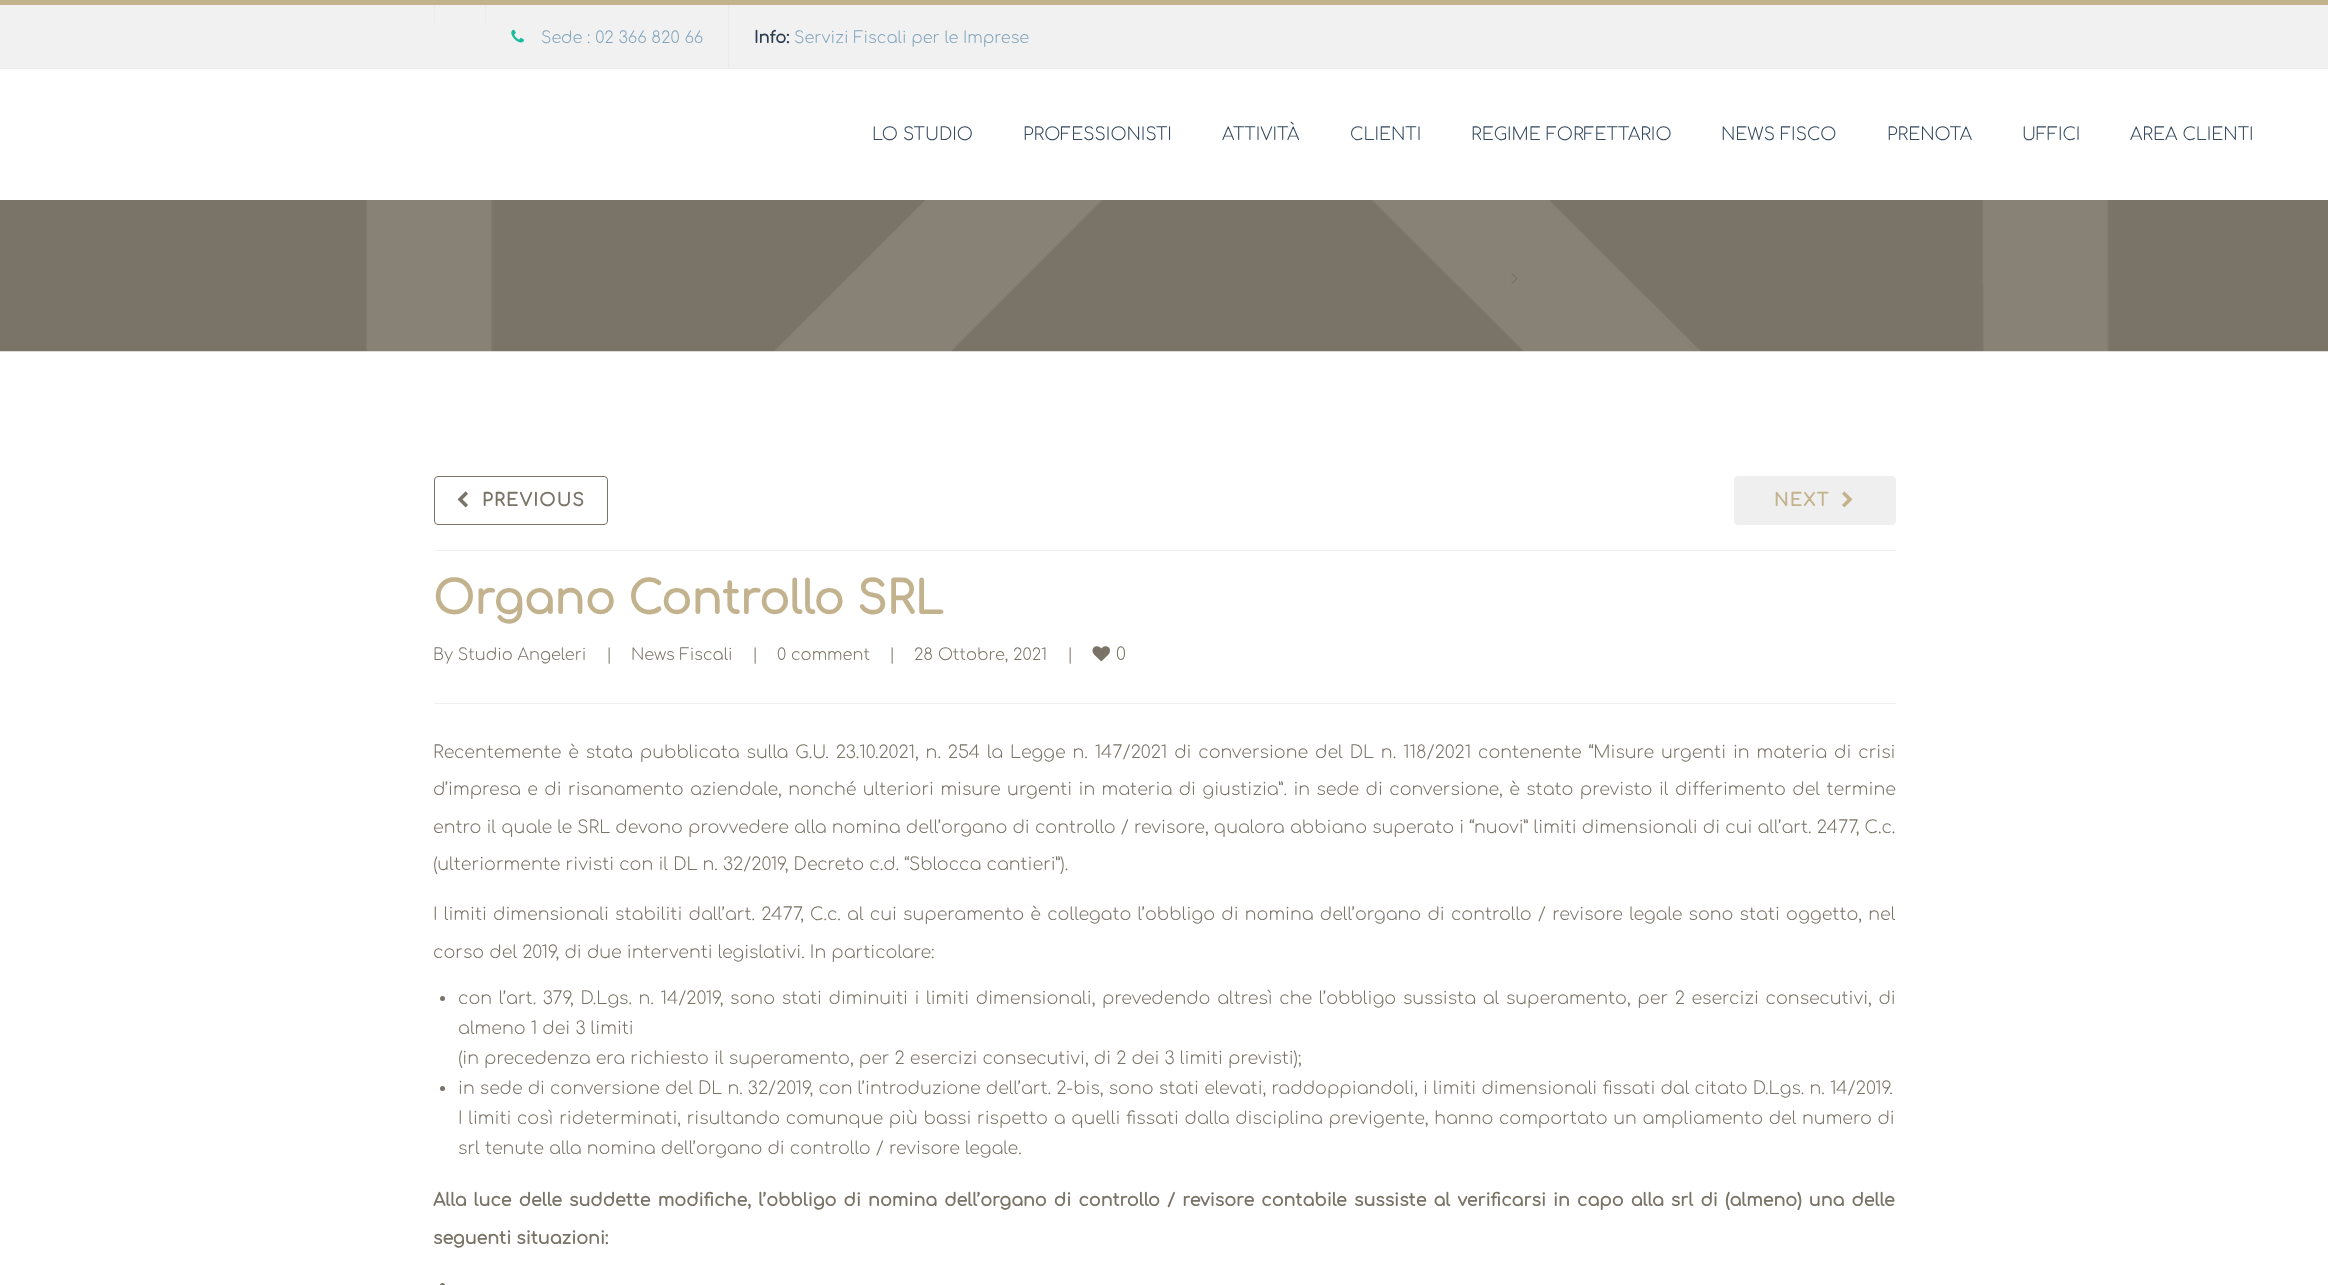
(async () => {
    const canvas = document.querySelector("canvas");
    canvas.width = 2328;
    canvas.height = 1285;
    const context = canvas.getContext("2d");
    context.miterLimit = 4;
    context.fontKerning = "normal";
    function write(s, x, y, font, color) {
        context.font = font;
        context.fillStyle = color;
        context.fillText(s, x, y);
    }
    function block(x, y, w, h, color) {
        context.fillStyle = color;
        context.fillRect(x, y, w, h);
    }
    async function photo(src, x, y, w, h) {
        const img = new Image();
        img.src = src;
        await img.decode();
        context.drawImage(img, x, y, w, h);
    }

    block(0, 0, 2328, 1285, "rgb(255, 255, 255)");
    block(0, 5, 2328, 63, "rgb(241, 241, 241)");
    block(0, 0, 2328, 5, "rgb(195, 178, 142)");
    block(0, 68, 2328, 1, "rgb(235, 235, 235)");
    block(485, 5, 1, 20, "rgb(235, 235, 235)");
    block(434, 5, 1, 20, "rgb(235, 235, 235)");
    block(728, 5, 1, 63, "rgb(235, 235, 235)");
    await photo("media/1.png", 511, 29, 13, 14);
    write("Sede : 02 366 820 66", 541, 43, "300 16.25px Comfortaa", "rgb(130, 165, 188)");
    write("Info:", 754, 43, "bold 16.25px Comfortaa", "rgb(44, 62, 80)");
    write("Servizi Fiscali per le Imprese", 794, 43, "300 16.25px Comfortaa", "rgb(130, 165, 188)");
    write("LO STUDIO", 872, 140, "300 17.5px Comfortaa", "rgb(52, 73, 94)");
    write("PROFESSIONISTI", 1023, 140, "300 17.5px Comfortaa", "rgb(52, 73, 94)");
    write("ATTIVITÀ", 1222, 140, "300 17.5px Comfortaa", "rgb(52, 73, 94)");
    write("CLIENTI", 1350, 140, "300 17.5px Comfortaa", "rgb(52, 73, 94)");
    write("REGIME FORFETTARIO", 1471, 140, "300 17.5px Comfortaa", "rgb(52, 73, 94)");
    write("NEWS FISCO", 1721, 140, "300 17.5px Comfortaa", "rgb(52, 73, 94)");
    write("PRENOTA", 1887, 140, "300 17.5px Comfortaa", "rgb(52, 73, 94)");
    write("UFFICI", 2022, 140, "300 17.5px Comfortaa", "rgb(52, 73, 94)");
    write("AREA CLIENTI", 2130, 140, "300 17.5px Comfortaa", "rgb(52, 73, 94)");
    await photo("media/2.png", 0, 200, 2328, 152);
    await photo("media/3.png", 1511, 273, 7, 11);
    block(434, 550, 1462, 1, "rgb(239, 239, 239)");
    context.beginPath();
    context.roundRect(434.5, 476.5, 173, 48, 3.5);
    context.strokeStyle = "rgb(122, 115, 103)";
    context.stroke();
    await photo("media/4.png", 457, 491, 11, 17);
    context.letterSpacing = "1.25px";
    write("PREVIOUS", 482, 506, "bold 17.5px Comfortaa", "rgb(122, 115, 103)");
    context.fillStyle = "rgb(239, 239, 239)";
    context.beginPath();
    context.roundRect(1734.5, 476.5, 161, 48, 3.5);
    context.fill();
    context.strokeStyle = "rgb(239, 239, 239)";
    context.stroke();
    write("NEXT", 1774, 506, "bold 17.5px Comfortaa", "rgb(195, 178, 142)");
    await photo("media/5.png", 1842, 491, 11, 17);
    context.letterSpacing = "0px";
    write("Organo Controllo SRL", 433, 614, "bold 45px Comfortaa", "rgb(195, 178, 142)");
    block(434, 703, 1462, 1, "rgb(239, 239, 239)");
    write("By Studio Angeleri", 433, 660, "300 16.25px Comfortaa", "rgb(122, 115, 103)");
    write("|", 606, 660, "300 16.25px Comfortaa", "rgb(122, 115, 103)");
    write("News Fiscali", 631, 660, "300 16.25px Comfortaa", "rgb(122, 115, 103)");
    write("|", 752, 660, "300 16.25px Comfortaa", "rgb(122, 115, 103)");
    write("0 comment", 777, 660, "300 16.25px Comfortaa", "rgb(122, 115, 103)");
    write("|", 889, 660, "300 16.25px Comfortaa", "rgb(122, 115, 103)");
    write("28 Ottobre, 2021", 914, 660, "300 16.25px Comfortaa", "rgb(122, 115, 103)");
    write("|", 1067, 660, "300 16.25px Comfortaa", "rgb(122, 115, 103)");
    await photo("media/6.png", 1092, 646, 18, 16);
    write("0", 1116, 660, "300 17.5px Comfortaa", "rgb(122, 115, 103)");
    context.wordSpacing = "1.75px";
    write("Recentemente è stata pubblicata sulla G.U. 23.10.2021, n. 254 la Legge n. 147/2021 di conversione del DL n. 118/2021 contenente “Misure urgenti in materia di crisi", 433, 758, "300 17.5px Comfortaa", "rgb(122, 115, 103)");
    context.wordSpacing = "1.25px";
    write("d’impresa e di risanamento aziendale, nonché ulteriori misure urgenti in materia di giustizia”. in sede di conversione, è stato previsto il differimento del termine", 433, 795, "300 17.5px Comfortaa", "rgb(122, 115, 103)");
    context.wordSpacing = "0px";
    write("entro il quale le SRL devono provvedere alla nomina dell’organo di controllo / revisore, qualora abbiano superato i “nuovi” limiti dimensionali di cui all’art. 2477, C.c.", 433, 833, "300 17.5px Comfortaa", "rgb(122, 115, 103)");
    write("(ulteriormente rivisti con il DL n. 32/2019, Decreto c.d. “Sblocca cantieri”).", 433, 870, "300 17.5px Comfortaa", "rgb(122, 115, 103)");
    context.wordSpacing = "1.05px";
    write("I limiti dimensionali stabiliti dall’art. 2477, C.c. al cui superamento è collegato l’obbligo di nomina dell’organo di controllo / revisore legale sono stati oggetto, nel", 433, 920, "300 17.5px Comfortaa", "rgb(122, 115, 103)");
    context.wordSpacing = "0px";
    write("corso del 2019, di due interventi legislativi. In particolare:", 433, 958, "300 17.5px Comfortaa", "rgb(122, 115, 103)");
    context.beginPath();
    context.arc(442.5, 998.5, 2.5, 0, Math.PI * 2);
    context.fill();
    context.wordSpacing = "1.5px";
    write("con l’art. 379, D.Lgs. n. 14/2019, sono stati diminuiti i limiti dimensionali, prevedendo altresì che l’obbligo sussista al superamento, per 2 esercizi consecutivi, di", 458, 1004, "300 17.5px Comfortaa", "rgb(122, 115, 103)");
    context.wordSpacing = "0px";
    write("almeno 1 dei 3 limiti", 458, 1034, "300 17.5px Comfortaa", "rgb(122, 115, 103)");
    write("(in precedenza era richiesto il superamento, per 2 esercizi consecutivi, di 2 dei 3 limiti previsti);", 458, 1064, "300 17.5px Comfortaa", "rgb(122, 115, 103)");
    context.beginPath();
    context.arc(442.5, 1088.5, 2.5, 0, Math.PI * 2);
    context.fill();
    write("in sede di conversione del DL n. 32/2019, con l’introduzione dell’art. 2-bis, sono stati elevati, raddoppiandoli, i limiti dimensionali fissati dal citato D.Lgs. n. 14/2019.", 458, 1094, "300 17.5px Comfortaa", "rgb(122, 115, 103)");
    context.wordSpacing = "0.5px";
    write("I limiti così rideterminati, risultando comunque più bassi rispetto a quelli fissati dalla disciplina previgente, hanno comportato un ampliamento del numero di", 458, 1124, "300 17.5px Comfortaa", "rgb(122, 115, 103)");
    context.wordSpacing = "0px";
    write("srl tenute alla nomina dell’organo di controllo / revisore legale.", 458, 1154, "300 17.5px Comfortaa", "rgb(122, 115, 103)");
    context.wordSpacing = "2px";
    write("Alla luce delle suddette modifiche, l’obbligo di nomina dell’organo di controllo / revisore contabile sussiste al verificarsi in capo alla srl di (almeno) una delle", 433, 1206, "bold 17.5px Comfortaa", "rgb(122, 115, 103)");
    context.wordSpacing = "0px";
    write("seguenti situazioni:", 433, 1244, "bold 17.5px Comfortaa", "rgb(122, 115, 103)");
    context.beginPath();
    context.arc(442.5, 1285.5, 2.5, 0, Math.PI * 2);
    context.fill();
})();
